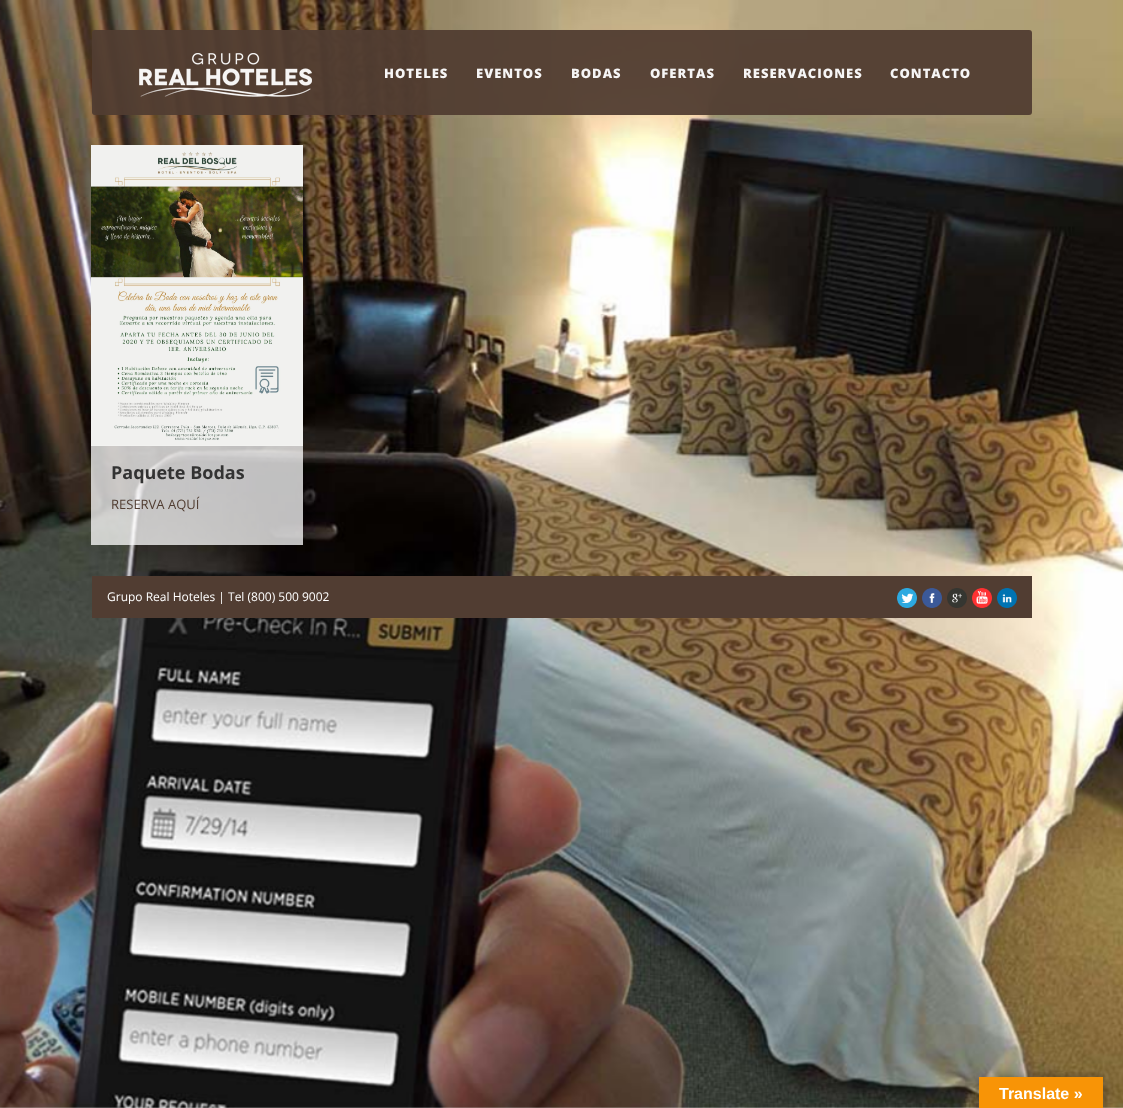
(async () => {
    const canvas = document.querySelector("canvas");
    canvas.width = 1123;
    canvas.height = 1108;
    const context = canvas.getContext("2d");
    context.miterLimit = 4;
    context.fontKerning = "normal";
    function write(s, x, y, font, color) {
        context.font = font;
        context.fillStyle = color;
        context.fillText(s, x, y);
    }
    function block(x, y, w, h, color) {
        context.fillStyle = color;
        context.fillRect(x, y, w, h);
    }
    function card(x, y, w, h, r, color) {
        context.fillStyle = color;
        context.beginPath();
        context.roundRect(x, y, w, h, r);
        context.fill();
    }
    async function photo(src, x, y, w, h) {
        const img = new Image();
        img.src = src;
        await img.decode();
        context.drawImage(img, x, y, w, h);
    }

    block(0, 0, 1123, 1108, "rgb(255, 255, 255)");
    await photo("media/1.png", 0, 0, 1123, 1108);
    card(92, 30, 940, 85, 3, "rgba(81, 61, 50, 0.95)");
    await photo("media/2.png", 139, 53, 173, 44);
    context.letterSpacing = "1px";
    write("HOTELES", 384, 78, "800 13px Open Sans", "rgb(246, 245, 245)");
    write("EVENTOS", 476, 78, "800 13px Open Sans", "rgb(246, 245, 245)");
    write("BODAS", 571, 78, "800 13px Open Sans", "rgb(246, 245, 245)");
    write("OFERTAS", 650, 78, "800 13px Open Sans", "rgb(246, 245, 245)");
    write("RESERVACIONES", 743, 78, "800 13px Open Sans", "rgb(246, 245, 245)");
    write("CONTACTO", 890, 78, "800 13px Open Sans", "rgb(246, 245, 245)");
    await photo("media/3.png", 91, 145, 212, 301);
    block(91, 446, 212, 99, "rgba(255, 255, 255, 0.75)");
    context.letterSpacing = "0px";
    write("Paquete Bodas", 111, 479, "bold 18px Open Sans", "rgb(51, 51, 51)");
    write("RESERVA AQUÍ", 111, 509, "13px Open Sans", "rgb(81, 61, 50)");
    block(92, 576, 940, 42, "rgb(81, 61, 50)");
    write("Grupo Real Hoteles | Tel (800) 500 9002", 107, 601, "12px Open Sans", "rgb(255, 255, 255)");
    await photo("media/4.png", 897, 588, 20, 20);
    await photo("media/5.png", 922, 588, 20, 20);
    await photo("media/6.png", 947, 588, 20, 20);
    await photo("media/7.png", 972, 588, 20, 20);
    await photo("media/8.png", 997, 588, 20, 20);
    context.fillStyle = "rgba(0, 0, 0, 0.3)";
    context.filter = "blur(4.5px)";
    context.beginPath();
    context.rect(979, 1077, 124, 31);
    context.fill();
    context.filter = "none";
    block(979, 1077, 124, 31, "rgb(248, 148, 6)");
    write("Translate »", 999, 1099, "bold 16px Liberation Sans", "rgb(255, 255, 255)");
})();
